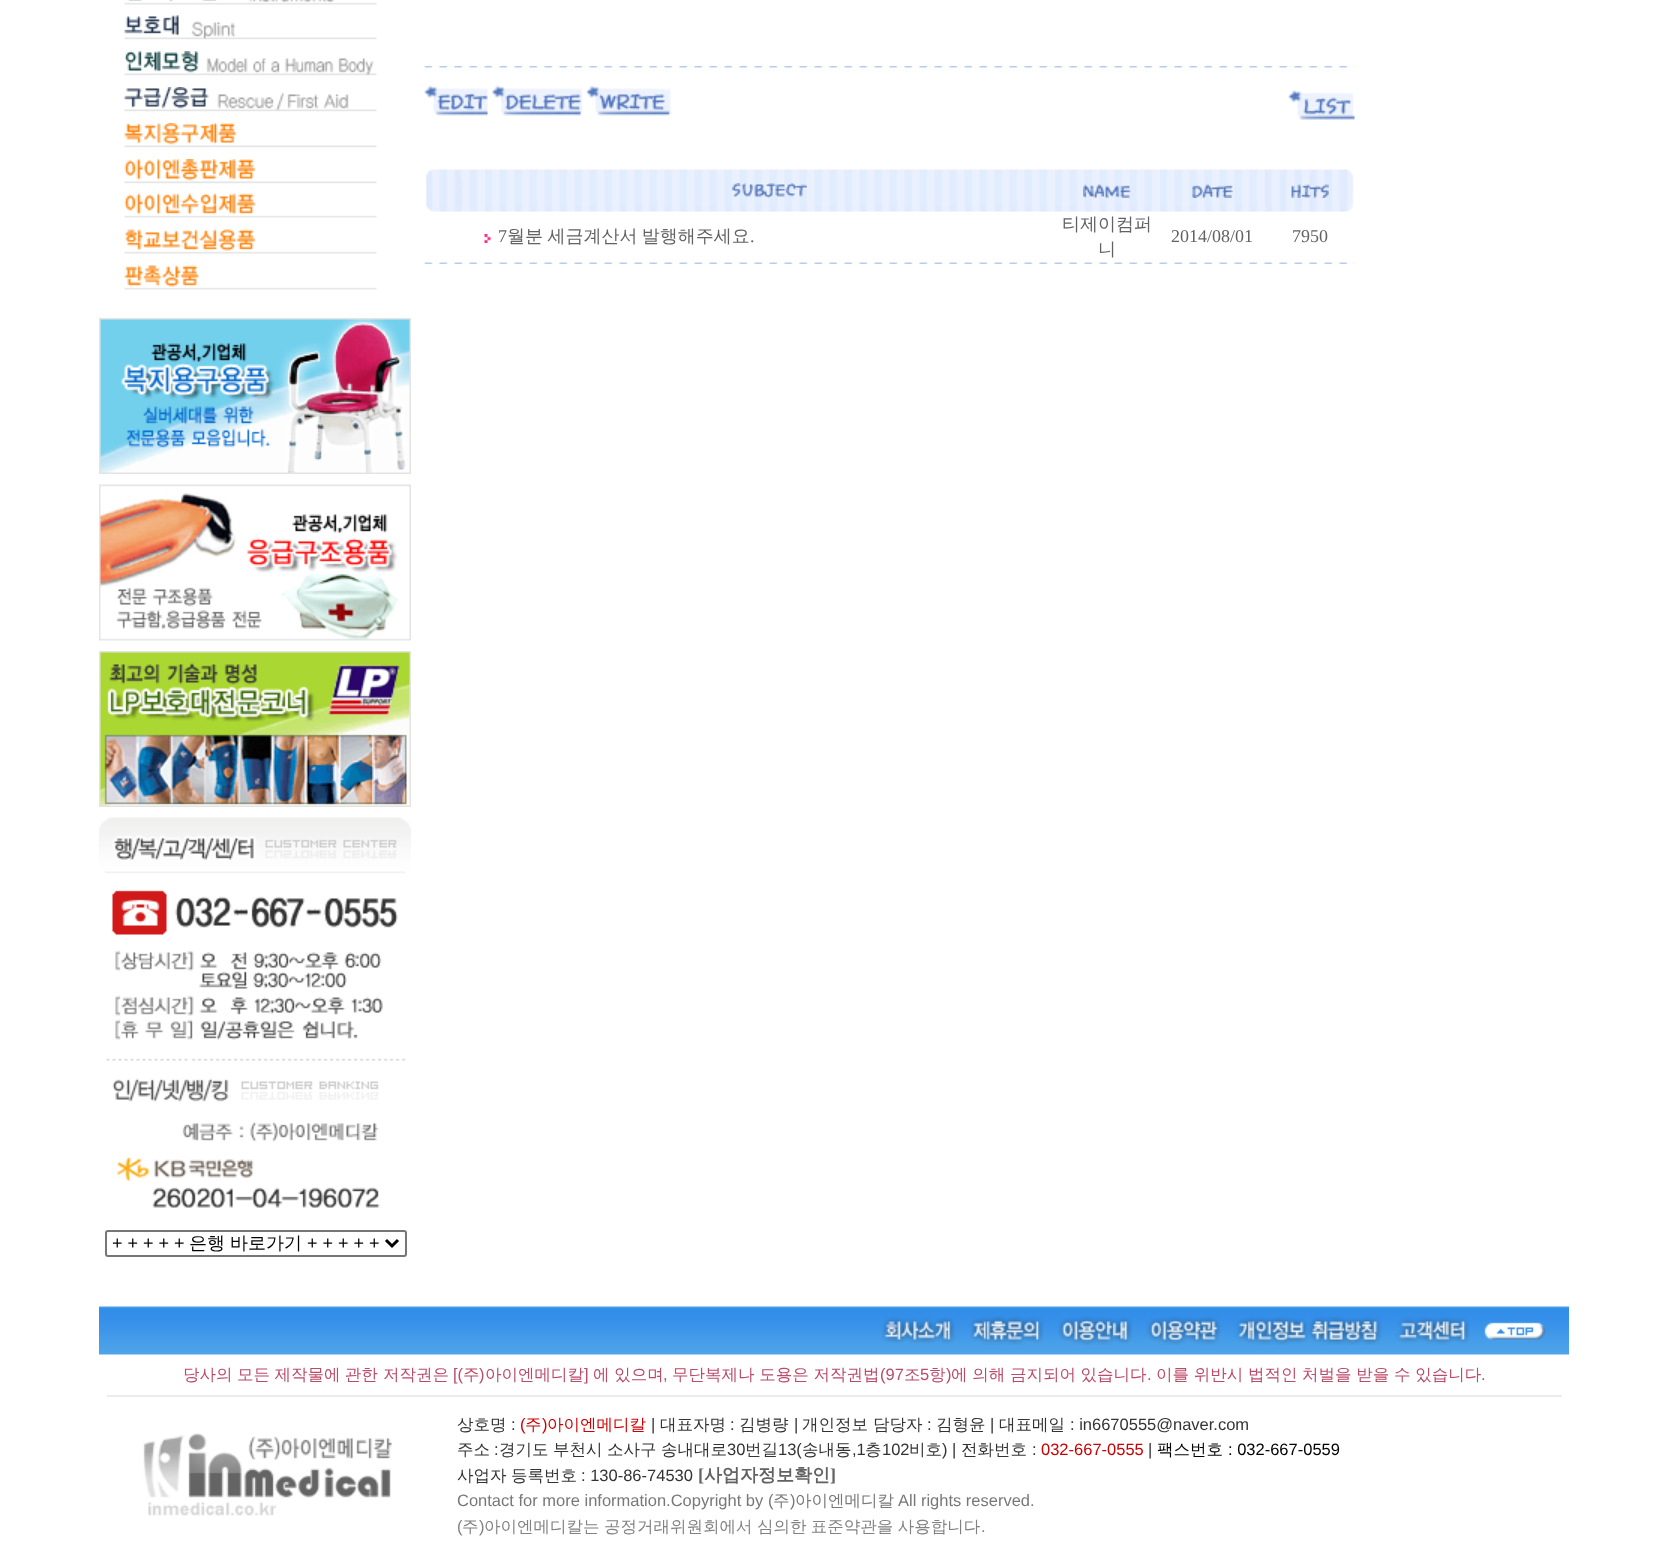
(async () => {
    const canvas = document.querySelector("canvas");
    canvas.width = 1661;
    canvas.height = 1559;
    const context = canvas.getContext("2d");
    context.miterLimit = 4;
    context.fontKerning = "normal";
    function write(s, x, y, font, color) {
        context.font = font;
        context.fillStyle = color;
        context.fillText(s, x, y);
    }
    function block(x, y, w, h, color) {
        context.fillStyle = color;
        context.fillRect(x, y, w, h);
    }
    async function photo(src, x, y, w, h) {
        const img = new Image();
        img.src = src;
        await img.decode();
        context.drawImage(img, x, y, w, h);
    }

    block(0, 0, 1661, 1559, "rgb(255, 255, 255)");
    await photo("media/1.png", 424, 66, 931, 2);
    await photo("media/2.png", 424, 85, 64, 31);
    await photo("media/3.png", 492, 85, 90, 31);
    await photo("media/4.png", 586, 85, 85, 31);
    await photo("media/5.png", 1288, 90, 67, 30);
    await photo("media/6.png", 426, 169, 59, 43);
    await photo("media/7.png", 484, 169, 571, 43);
    await photo("media/8.png", 732, 183, 75, 15);
    await photo("media/9.png", 1054, 169, 106, 43);
    await photo("media/10.png", 1083, 184, 48, 14);
    await photo("media/11.png", 1159, 169, 106, 43);
    await photo("media/12.png", 1192, 184, 41, 14);
    await photo("media/13.png", 1264, 169, 90, 43);
    await photo("media/14.png", 1290, 184, 39, 14);
    await photo("media/15.png", 484, 234, 7, 9);
    write("7", 498, 242, "18px Liberation Serif", "rgb(98, 98, 98)");
    context.wordSpacing = "-1px";
    write("월분 세금계산서 발행해주세요", 507, 242, "500 18px WenQuanYi Zen Hei", "rgb(98, 98, 98)");
    context.wordSpacing = "0px";
    write(".", 750, 242, "18px Liberation Serif", "rgb(98, 98, 98)");
    write("티제이컴퍼", 1062, 230, "500 18px WenQuanYi Zen Hei", "rgb(98, 98, 98)");
    write("니", 1098, 255, "500 18px WenQuanYi Zen Hei", "rgb(98, 98, 98)");
    write("2014/08/01", 1171, 242, "18px Liberation Serif", "rgb(98, 98, 98)");
    write("7950", 1292, 242, "18px Liberation Serif", "rgb(98, 98, 98)");
    await photo("media/16.png", 424, 262, 931, 2);
    await photo("media/17.png", 124, 0, 253, 5);
    await photo("media/18.png", 124, 15, 253, 25);
    await photo("media/19.png", 124, 51, 253, 25);
    await photo("media/20.png", 124, 87, 253, 25);
    await photo("media/21.png", 124, 123, 253, 25);
    await photo("media/22.png", 124, 159, 253, 25);
    await photo("media/23.png", 124, 193, 253, 25);
    await photo("media/24.png", 124, 229, 253, 25);
    await photo("media/25.png", 124, 265, 253, 25);
    await photo("media/26.png", 99, 318, 312, 156);
    await photo("media/27.png", 99, 484, 312, 157);
    await photo("media/28.png", 99, 651, 312, 156);
    await photo("media/29.png", 99, 817, 312, 391);
    context.beginPath();
    context.roundRect(106, 1231, 300, 25, 2);
    context.strokeStyle = "rgb(118, 118, 118)";
    context.lineWidth = 2;
    context.stroke();
    context.beginPath();
    context.moveTo(386, 1240);
    context.lineTo(392, 1246);
    context.lineTo(398, 1240);
    context.strokeStyle = "rgb(0, 0, 0)";
    context.lineWidth = 3;
    context.stroke();
    write("+ + + + +", 112, 1249, "18px Liberation Sans", "rgb(0, 0, 0)");
    write("은행", 189, 1249, "500 18px WenQuanYi Zen Hei", "rgb(0, 0, 0)");
    write("바로가기", 230, 1249, "500 18px WenQuanYi Zen Hei", "rgb(0, 0, 0)");
    write("+ + + + +", 307, 1249, "18px Liberation Sans", "rgb(0, 0, 0)");
    await photo("media/30.png", 99, 1306, 1470, 49);
    await photo("media/31.png", 881, 1316, 75, 28);
    await photo("media/32.png", 970, 1316, 74, 29);
    await photo("media/33.png", 1058, 1316, 75, 29);
    await photo("media/34.png", 1146, 1316, 75, 29);
    await photo("media/35.png", 1235, 1316, 147, 29);
    await photo("media/36.png", 1395, 1316, 75, 29);
    await photo("media/37.png", 1484, 1322, 62, 18);
    context.wordSpacing = "-0.5px";
    write("당사의 모든 제작물에 관한", 183, 1380, "500 16.5px WenQuanYi Zen Hei", "rgb(186, 75, 105)");
    context.wordSpacing = "0px";
    write("저작권은", 383, 1380, "500 16.5px WenQuanYi Zen Hei", "rgb(186, 75, 105)");
    write("[(", 453, 1380, "16.5px Liberation Sans", "rgb(186, 75, 105)");
    write("주", 463, 1380, "500 16.5px WenQuanYi Zen Hei", "rgb(186, 75, 105)");
    write(")", 479, 1380, "16.5px Liberation Sans", "rgb(186, 75, 105)");
    write("아이엔메디칼", 485, 1380, "500 16.5px WenQuanYi Zen Hei", "rgb(186, 75, 105)");
    write("]", 584, 1380, "16.5px Liberation Sans", "rgb(186, 75, 105)");
    context.wordSpacing = "-0.25px";
    write("에 있으며", 593, 1380, "500 16.5px WenQuanYi Zen Hei", "rgb(186, 75, 105)");
    context.wordSpacing = "0px";
    write(",", 663, 1380, "16.5px Liberation Sans", "rgb(186, 75, 105)");
    context.wordSpacing = "-0.25px";
    write("무단복제나 도용은 저작권법", 672, 1380, "500 16.5px WenQuanYi Zen Hei", "rgb(186, 75, 105)");
    context.wordSpacing = "0px";
    write("(97", 880, 1380, "16.5px Liberation Sans", "rgb(186, 75, 105)");
    write("조", 904, 1380, "500 16.5px WenQuanYi Zen Hei", "rgb(186, 75, 105)");
    write("5", 920, 1380, "16.5px Liberation Sans", "rgb(186, 75, 105)");
    write("항", 929, 1380, "500 16.5px WenQuanYi Zen Hei", "rgb(186, 75, 105)");
    write(")", 946, 1380, "16.5px Liberation Sans", "rgb(186, 75, 105)");
    context.wordSpacing = "-0.25px";
    write("에 의해 금지되어 있습니다", 951, 1380, "500 16.5px WenQuanYi Zen Hei", "rgb(186, 75, 105)");
    context.wordSpacing = "0px";
    write(".", 1147, 1380, "16.5px Liberation Sans", "rgb(186, 75, 105)");
    context.wordSpacing = "-0.25px";
    write("이를 위반시 법적인 처벌을 받을 수 있습니다", 1156, 1380, "500 16.5px WenQuanYi Zen Hei", "rgb(186, 75, 105)");
    context.wordSpacing = "0px";
    write(".", 1481, 1380, "16.5px Liberation Sans", "rgb(186, 75, 105)");
    block(107, 1395, 1455, 2, "rgb(236, 236, 236)");
    await photo("media/38.png", 143, 1433, 249, 83);
    write("상호명", 457, 1430, "500 16.5px WenQuanYi Zen Hei", "rgb(51, 51, 51)");
    write(":", 511, 1430, "16.5px Liberation Sans", "rgb(51, 51, 51)");
    write("(", 520, 1430, "16.5px Liberation Sans", "rgb(204, 0, 0)");
    write("주", 525, 1430, "500 16.5px WenQuanYi Zen Hei", "rgb(204, 0, 0)");
    write(")", 542, 1430, "16.5px Liberation Sans", "rgb(204, 0, 0)");
    write("아이엔메디칼", 547, 1430, "500 16.5px WenQuanYi Zen Hei", "rgb(204, 0, 0)");
    write("|", 651, 1430, "16.5px Liberation Sans", "rgb(51, 51, 51)");
    write("대표자명", 660, 1430, "500 16.5px WenQuanYi Zen Hei", "rgb(51, 51, 51)");
    write(":", 730, 1430, "16.5px Liberation Sans", "rgb(51, 51, 51)");
    write("김병량", 739, 1430, "500 16.5px WenQuanYi Zen Hei", "rgb(51, 51, 51)");
    write("|", 794, 1430, "16.5px Liberation Sans", "rgb(51, 51, 51)");
    write("개인정보", 802, 1430, "500 16.5px WenQuanYi Zen Hei", "rgb(51, 51, 51)");
    write("담당자", 873, 1430, "500 16.5px WenQuanYi Zen Hei", "rgb(51, 51, 51)");
    write(":", 927, 1430, "16.5px Liberation Sans", "rgb(51, 51, 51)");
    write("김형윤", 936, 1430, "500 16.5px WenQuanYi Zen Hei", "rgb(51, 51, 51)");
    write("|", 990, 1430, "16.5px Liberation Sans", "rgb(51, 51, 51)");
    write("대표메일", 999, 1430, "500 16.5px WenQuanYi Zen Hei", "rgb(51, 51, 51)");
    write(": in6670555@naver.com", 1070, 1430, "16.5px Liberation Sans", "rgb(51, 51, 51)");
    write("주소", 457, 1455, "500 16.5px WenQuanYi Zen Hei", "rgb(51, 51, 51)");
    write(":", 494, 1455, "16.5px Liberation Sans", "rgb(51, 51, 51)");
    write("경기도", 499, 1455, "500 16.5px WenQuanYi Zen Hei", "rgb(51, 51, 51)");
    write("부천시", 553, 1455, "500 16.5px WenQuanYi Zen Hei", "rgb(51, 51, 51)");
    write("소사구", 607, 1455, "500 16.5px WenQuanYi Zen Hei", "rgb(51, 51, 51)");
    write("송내대로", 661, 1455, "500 16.5px WenQuanYi Zen Hei", "rgb(51, 51, 51)");
    write("30", 727, 1455, "16.5px Liberation Sans", "rgb(51, 51, 51)");
    write("번길", 745, 1455, "500 16.5px WenQuanYi Zen Hei", "rgb(51, 51, 51)");
    write("13(", 778, 1455, "16.5px Liberation Sans", "rgb(51, 51, 51)");
    write("송내동", 802, 1455, "500 16.5px WenQuanYi Zen Hei", "rgb(51, 51, 51)");
    write(",1", 852, 1455, "16.5px Liberation Sans", "rgb(51, 51, 51)");
    write("층", 865, 1455, "500 16.5px WenQuanYi Zen Hei", "rgb(51, 51, 51)");
    write("102", 882, 1455, "16.5px Liberation Sans", "rgb(51, 51, 51)");
    write("비호", 909, 1455, "500 16.5px WenQuanYi Zen Hei", "rgb(51, 51, 51)");
    write(") |", 942, 1455, "16.5px Liberation Sans", "rgb(51, 51, 51)");
    write("전화번호", 961, 1455, "500 16.5px WenQuanYi Zen Hei", "rgb(51, 51, 51)");
    write(":", 1032, 1455, "16.5px Liberation Sans", "rgb(51, 51, 51)");
    write("032-667-0555", 1041, 1455, "16.5px Liberation Sans", "rgb(204, 0, 0)");
    write("|", 1148, 1455, "16.5px Liberation Sans", "rgb(51, 51, 51)");
    write("팩스번호", 1157, 1455, "500 16.5px WenQuanYi Zen Hei", "rgb(0, 0, 0)");
    write(": 032-667-0559", 1228, 1455, "16.5px Liberation Sans", "rgb(0, 0, 0)");
    write("사업자", 457, 1481, "500 16.5px WenQuanYi Zen Hei", "rgb(51, 51, 51)");
    write("등록번호", 511, 1481, "500 16.5px WenQuanYi Zen Hei", "rgb(51, 51, 51)");
    write(": 130-86-74530", 581, 1481, "16.5px Liberation Sans", "rgb(51, 51, 51)");
    write("[", 698, 1481, "bold 18px Liberation Serif", "rgb(98, 98, 98)");
    write("사업자정보확인", 704, 1481, "bold 18px WenQuanYi Zen Hei", "rgb(98, 98, 98)");
    write("]", 830, 1481, "bold 18px Liberation Serif", "rgb(98, 98, 98)");
    write("Contact for more information.Copyright by (", 457, 1506, "16.5px Liberation Sans", "rgb(121, 120, 120)");
    write("주", 773, 1506, "500 16.5px WenQuanYi Zen Hei", "rgb(121, 120, 120)");
    write(")", 790, 1506, "16.5px Liberation Sans", "rgb(121, 120, 120)");
    write("아이엔메디칼", 795, 1506, "500 16.5px WenQuanYi Zen Hei", "rgb(121, 120, 120)");
    write("All rights reserved.", 898, 1506, "16.5px Liberation Sans", "rgb(121, 120, 120)");
    write("(", 457, 1532, "16.5px Liberation Sans", "rgb(130, 130, 130)");
    write("주", 462, 1532, "500 16.5px WenQuanYi Zen Hei", "rgb(130, 130, 130)");
    write(")", 479, 1532, "16.5px Liberation Sans", "rgb(130, 130, 130)");
    context.wordSpacing = "-0.5px";
    write("아이엔메디칼는 공정거래위원회에서 심의한 표준약관을 사용합니다", 484, 1532, "500 16.5px WenQuanYi Zen Hei", "rgb(130, 130, 130)");
    context.wordSpacing = "0px";
    write(".", 981, 1532, "16.5px Liberation Sans", "rgb(130, 130, 130)");
})();
